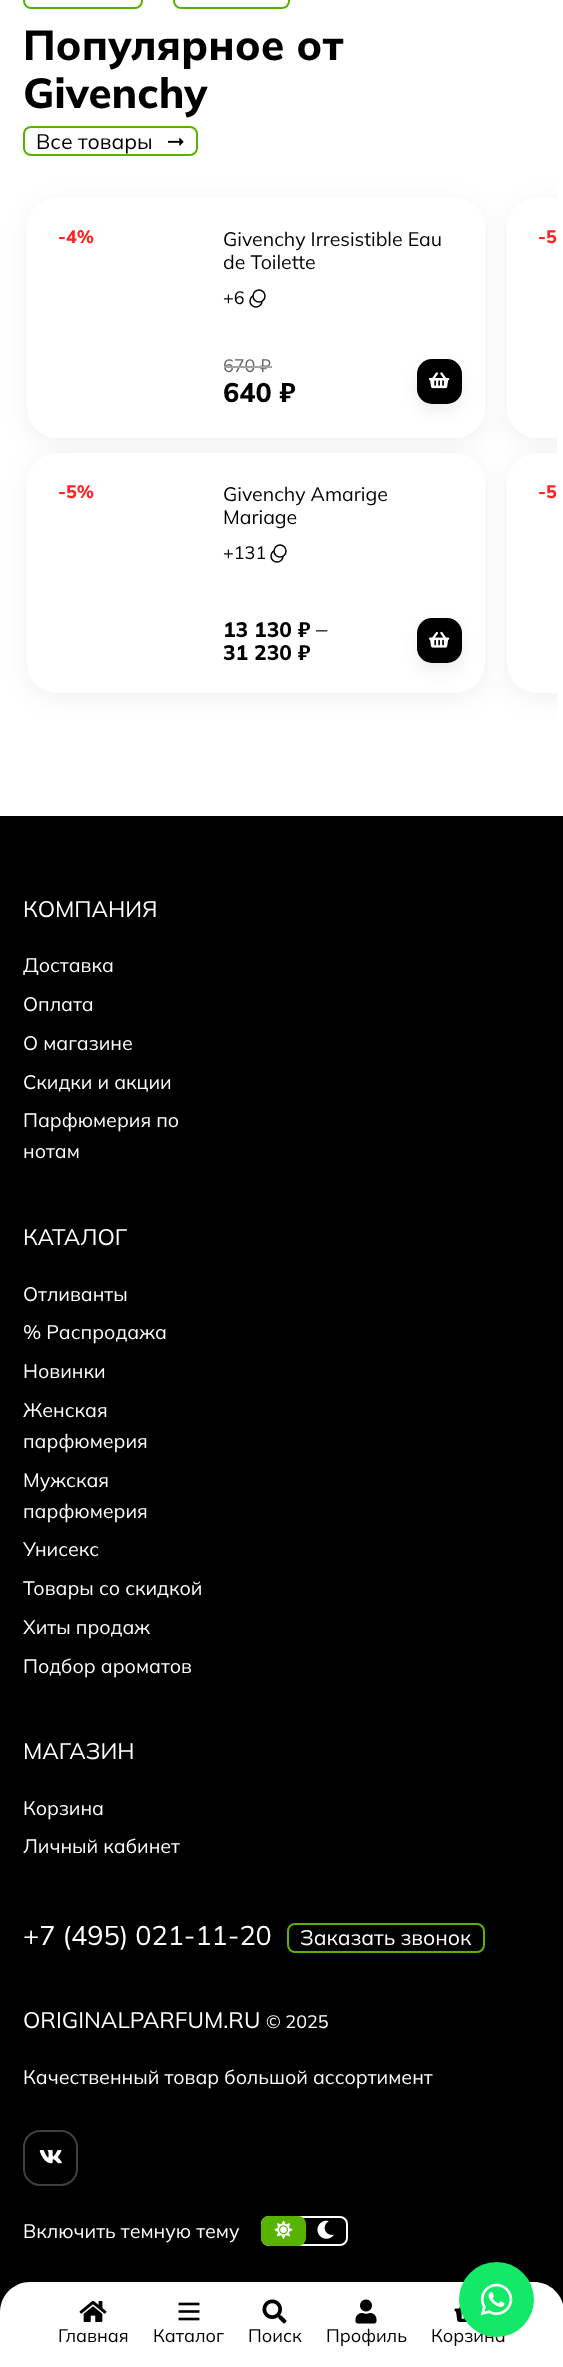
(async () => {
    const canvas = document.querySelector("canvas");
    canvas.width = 563;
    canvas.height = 2367;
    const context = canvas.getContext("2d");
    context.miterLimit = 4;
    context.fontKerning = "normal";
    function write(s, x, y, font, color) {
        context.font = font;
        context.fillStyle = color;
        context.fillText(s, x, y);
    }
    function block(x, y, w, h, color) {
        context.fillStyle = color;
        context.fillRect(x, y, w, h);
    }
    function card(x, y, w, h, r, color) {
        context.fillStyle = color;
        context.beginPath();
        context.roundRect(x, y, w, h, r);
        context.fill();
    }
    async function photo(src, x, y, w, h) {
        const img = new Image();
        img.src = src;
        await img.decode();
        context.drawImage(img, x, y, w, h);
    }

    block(0, 0, 563, 2367, "rgb(255, 255, 255)");
    context.beginPath();
    context.roundRect(24, -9, 118, 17, 7);
    context.strokeStyle = "rgb(88, 179, 0)";
    context.lineWidth = 2;
    context.stroke();
    context.beginPath();
    context.roundRect(174, -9, 115, 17, 7);
    context.stroke();
    write("Популярное от", 23, 60, "800 42px Mulish", "rgb(0, 0, 0)");
    write("Givenchy", 23, 108, "800 42px Mulish", "rgb(0, 0, 0)");
    context.beginPath();
    context.roundRect(24, 127, 173, 28, 7);
    context.stroke();
    write("Все товары", 36, 149, "21px Mulish", "rgb(0, 0, 0)");
    await photo("media/1.png", 168, 137, 16, 9);
    context.fillStyle = "rgba(0, 0, 0, 0.06)";
    context.filter = "blur(13px)";
    context.beginPath();
    context.roundRect(27, 203, 458, 240, 30);
    context.fill();
    context.filter = "none";
    card(27, 198, 458, 240, 30, "rgb(255, 255, 255)");
    write("-4%", 58, 243, "800 18px Mulish", "rgb(255, 36, 36)");
    write("Givenchy Irresistible Eau", 223, 246, "19.5px Mulish", "rgb(0, 0, 0)");
    write("de Toilette", 223, 269, "19.5px Mulish", "rgb(0, 0, 0)");
    write("+6", 223, 304, "18px Mulish", "rgb(0, 0, 0)");
    context.beginPath();
    context.arc(256, 301, 6, 0, Math.PI * 2);
    context.strokeStyle = "rgb(0, 0, 0)";
    context.lineWidth = 1.5;
    context.stroke();
    context.fillStyle = "rgb(255, 255, 255)";
    context.beginPath();
    context.arc(259, 296, 6, 0, Math.PI * 2);
    context.fill();
    context.stroke();
    write("670 ₽", 223, 372, "18px Mulish", "rgb(101, 101, 101)");
    block(224, 366, 48, 2, "rgb(163, 163, 163)");
    write("640 ₽", 223, 402, "800 27px Mulish", "rgb(0, 0, 0)");
    context.fillStyle = "rgba(0, 0, 0, 0.07)";
    context.filter = "blur(7.5px)";
    context.beginPath();
    context.roundRect(417, 366, 45, 45, 15);
    context.fill();
    context.filter = "none";
    card(417, 359, 45, 45, 15, "rgb(0, 0, 0)");
    await photo("media/2.png", 429, 372, 21, 17);
    context.fillStyle = "rgba(0, 0, 0, 0.06)";
    context.filter = "blur(13px)";
    context.beginPath();
    context.roundRect(27, 458, 458, 240, 30);
    context.fill();
    context.filter = "none";
    card(27, 453, 458, 240, 30, "rgb(255, 255, 255)");
    write("-5%", 58, 498, "800 18px Mulish", "rgb(255, 36, 36)");
    write("Givenchy Amarige", 223, 501, "19.5px Mulish", "rgb(0, 0, 0)");
    write("Mariage", 223, 524, "19.5px Mulish", "rgb(0, 0, 0)");
    write("+131", 223, 559, "18px Mulish", "rgb(0, 0, 0)");
    context.beginPath();
    context.arc(277, 556, 6, 0, Math.PI * 2);
    context.stroke();
    context.fillStyle = "rgb(255, 255, 255)";
    context.beginPath();
    context.arc(280, 551, 6, 0, Math.PI * 2);
    context.fill();
    context.stroke();
    write("13 130 ₽", 223, 637, "800 21px Mulish", "rgb(0, 0, 0)");
    write("–", 316, 637, "22.5px Mulish", "rgb(0, 0, 0)");
    write("31 230 ₽", 223, 660, "800 21px Mulish", "rgb(0, 0, 0)");
    context.fillStyle = "rgba(0, 0, 0, 0.07)";
    context.filter = "blur(7.5px)";
    context.beginPath();
    context.roundRect(417, 626, 45, 45, 15);
    context.fill();
    context.filter = "none";
    card(417, 618, 45, 45, 15, "rgb(0, 0, 0)");
    await photo("media/3.png", 429, 631, 21, 17);
    context.save();
    context.beginPath();
    context.rect(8, 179, 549, 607);
    context.clip();
    context.fillStyle = "rgba(0, 0, 0, 0.06)";
    context.filter = "blur(13px)";
    context.beginPath();
    context.roundRect(507, 203, 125, 240, 30);
    context.fill();
    context.filter = "none";
    context.restore();
    context.fillStyle = "rgb(255, 255, 255)";
    context.beginPath();
    context.roundRect(507, 198, 50, 240, [30, 0, 0, 30]);
    context.fill();
    write("-5", 538, 243, "800 18px Mulish", "rgb(255, 36, 36)");
    context.save();
    context.beginPath();
    context.rect(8, 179, 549, 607);
    context.clip();
    context.fillStyle = "rgba(0, 0, 0, 0.06)";
    context.filter = "blur(13px)";
    context.beginPath();
    context.roundRect(507, 458, 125, 240, 30);
    context.fill();
    context.filter = "none";
    context.restore();
    context.fillStyle = "rgb(255, 255, 255)";
    context.beginPath();
    context.roundRect(507, 453, 50, 240, [30, 0, 0, 30]);
    context.fill();
    write("-5", 538, 498, "800 18px Mulish", "rgb(255, 36, 36)");
    block(0, 816, 563, 1496, "rgb(0, 0, 0)");
    write("КОМПАНИЯ", 23, 917, "22.5px Mulish", "rgb(255, 255, 255)");
    write("Доставка", 23, 972, "19.5px Mulish", "rgb(255, 255, 255)");
    write("Оплата", 23, 1011, "19.5px Mulish", "rgb(255, 255, 255)");
    write("О магазине", 23, 1050, "19.5px Mulish", "rgb(255, 255, 255)");
    write("Скидки и акции", 23, 1089, "19.5px Mulish", "rgb(255, 255, 255)");
    write("Парфюмерия по", 23, 1127, "19.5px Mulish", "rgb(255, 255, 255)");
    write("нотам", 23, 1158, "19.5px Mulish", "rgb(255, 255, 255)");
    write("КАТАЛОГ", 23, 1245, "22.5px Mulish", "rgb(255, 255, 255)");
    write("Отливанты", 23, 1301, "19.5px Mulish", "rgb(255, 255, 255)");
    write("% Распродажа", 23, 1339, "19.5px Mulish", "rgb(255, 255, 255)");
    write("Новинки", 23, 1378, "19.5px Mulish", "rgb(255, 255, 255)");
    write("Женская", 23, 1417, "19.5px Mulish", "rgb(255, 255, 255)");
    write("парфюмерия", 23, 1448, "19.5px Mulish", "rgb(255, 255, 255)");
    write("Мужская", 23, 1487, "19.5px Mulish", "rgb(255, 255, 255)");
    write("парфюмерия", 23, 1518, "19.5px Mulish", "rgb(255, 255, 255)");
    write("Унисекс", 23, 1556, "19.5px Mulish", "rgb(255, 255, 255)");
    write("Товары со скидкой", 23, 1595, "19.5px Mulish", "rgb(255, 255, 255)");
    write("Хиты продаж", 23, 1634, "19.5px Mulish", "rgb(255, 255, 255)");
    write("Подбор ароматов", 23, 1673, "19.5px Mulish", "rgb(255, 255, 255)");
    write("МАГАЗИН", 23, 1759, "22.5px Mulish", "rgb(255, 255, 255)");
    write("Корзина", 23, 1815, "19.5px Mulish", "rgb(255, 255, 255)");
    write("Личный кабинет", 23, 1853, "19.5px Mulish", "rgb(255, 255, 255)");
    write("+7 (495) 021-11-20", 23, 1945, "27px Mulish", "rgb(255, 255, 255)");
    context.beginPath();
    context.roundRect(288, 1924, 196, 28, 7);
    context.strokeStyle = "rgb(88, 179, 0)";
    context.lineWidth = 2;
    context.stroke();
    write("Заказать звонок", 300, 1945, "21px Mulish", "rgb(255, 255, 255)");
    write("ORIGINALPARFUM.RU", 23, 2028, "22.5px Mulish", "rgb(255, 255, 255)");
    write("© 2025", 266, 2028, "18px Mulish", "rgb(255, 255, 255)");
    write("Качественный товар большой ассортимент", 23, 2084, "19.5px Mulish", "rgb(255, 255, 255)");
    context.beginPath();
    context.roundRect(24, 2131, 53, 54, 16);
    context.strokeStyle = "rgb(64, 64, 64)";
    context.stroke();
    await photo("media/4.png", 39, 2150, 23, 14);
    write("Включить темную тему", 23, 2238, "19.5px Mulish", "rgb(255, 255, 255)");
    context.beginPath();
    context.roundRect(262, 2217, 85, 28, 7);
    context.strokeStyle = "rgb(255, 255, 255)";
    context.stroke();
    card(261, 2216, 45, 30, 8, "rgb(88, 179, 0)");
    await photo("media/5.png", 274, 2220, 19, 19);
    await photo("media/6.png", 317, 2220, 17, 19);
    context.fillStyle = "rgb(255, 255, 255)";
    context.beginPath();
    context.moveTo(30, 2282);
    context.lineTo(534, 2282);
    context.bezierCurveTo(550.5, 2282, 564, 2295.5, 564, 2312);
    context.lineTo(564, 2367);
    context.lineTo(0, 2367);
    context.lineTo(0, 2312);
    context.bezierCurveTo(0, 2295.5, 13.5, 2282, 30, 2282);
    context.closePath();
    context.fill();
    await photo("media/12.png", 454, 2307, 13, 15);
    write("Корзина", 431, 2342, "18px Mulish", "rgb(0, 0, 0)");
    context.fillStyle = "rgb(19, 233, 103)";
    context.beginPath();
    context.arc(496.5, 2299.5, 37.5, 0, Math.PI * 2);
    context.fill();
    await photo("media/7.png", 480, 2283, 33, 33);
    await photo("media/8.png", 79, 2301, 28, 21);
    write("Главная", 58, 2342, "18px Mulish", "rgb(0, 0, 0)");
    await photo("media/9.png", 178, 2302, 22, 19);
    write("Каталог", 153, 2342, "18px Mulish", "rgb(0, 0, 0)");
    await photo("media/10.png", 262, 2299, 25, 25);
    write("Поиск", 248, 2342, "18px Mulish", "rgb(0, 0, 0)");
    await photo("media/11.png", 355, 2299, 22, 25);
    write("Профиль", 326, 2342, "18px Mulish", "rgb(0, 0, 0)");
})();
